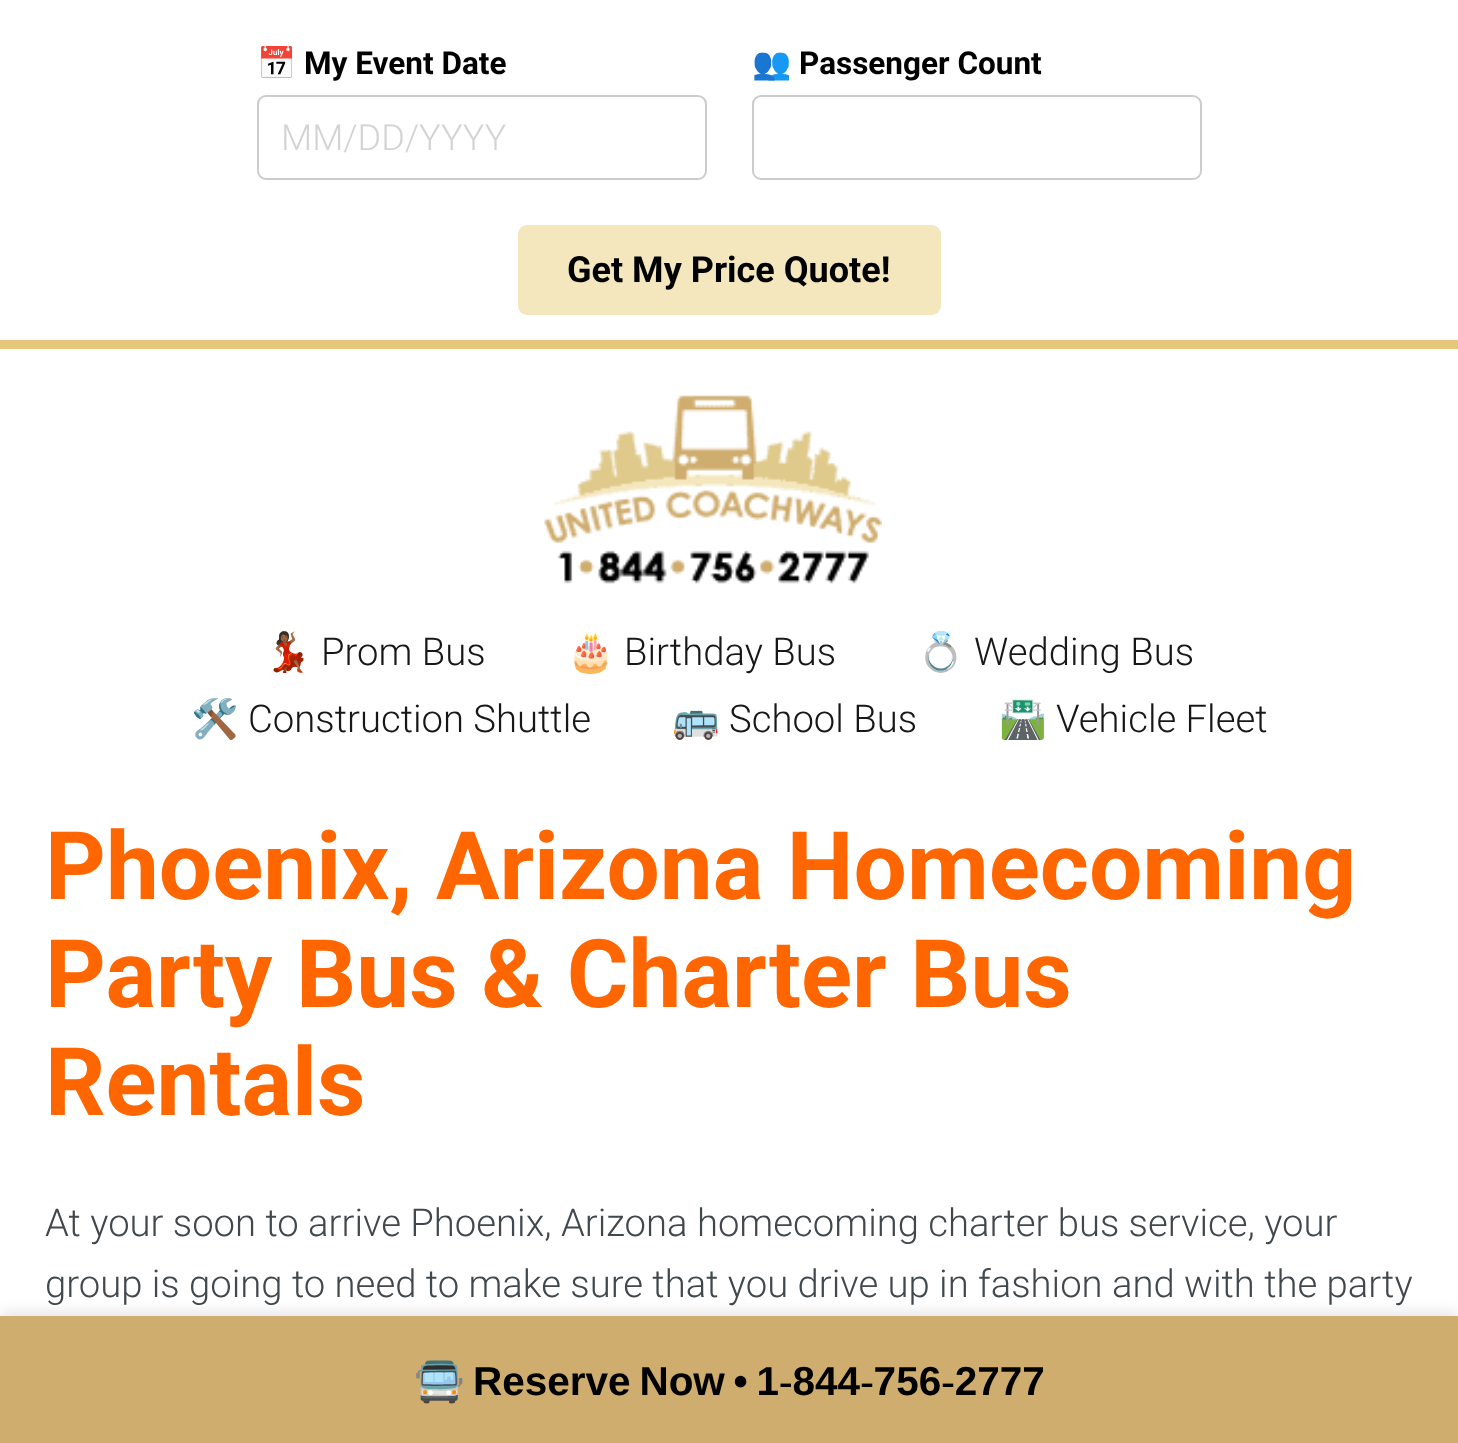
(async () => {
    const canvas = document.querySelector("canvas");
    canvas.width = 1458;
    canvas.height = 1443;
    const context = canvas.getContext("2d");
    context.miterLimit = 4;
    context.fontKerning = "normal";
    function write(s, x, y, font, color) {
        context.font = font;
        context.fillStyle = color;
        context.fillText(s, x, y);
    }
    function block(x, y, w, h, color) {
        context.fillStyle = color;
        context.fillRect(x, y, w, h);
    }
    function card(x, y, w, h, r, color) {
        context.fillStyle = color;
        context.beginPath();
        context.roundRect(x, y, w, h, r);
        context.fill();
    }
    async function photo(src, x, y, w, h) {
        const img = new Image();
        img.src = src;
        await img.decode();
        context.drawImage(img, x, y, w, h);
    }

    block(0, 0, 1458, 1443, "rgb(255, 255, 255)");
    write("📅", 257, 74, "bold 31.5px Noto Color Emoji", "rgb(0, 0, 0)");
    write("My Event Date", 304, 74, "bold 31.5px Roboto", "rgb(0, 0, 0)");
    context.beginPath();
    context.roundRect(258, 96, 448, 83, 8);
    context.strokeStyle = "rgb(204, 204, 204)";
    context.lineWidth = 2;
    context.stroke();
    write("MM/DD/YYYY", 281, 150, "300 36px Roboto", "rgb(213, 210, 210)");
    write("👥", 752, 74, "bold 31.5px Noto Color Emoji", "rgb(0, 0, 0)");
    write("Passenger Count", 799, 74, "bold 31.5px Roboto", "rgb(0, 0, 0)");
    context.beginPath();
    context.roundRect(753, 96, 448, 83, 8);
    context.stroke();
    card(518, 225, 423, 90, 9, "rgb(244, 231, 190)");
    write("Get My Price Quote!", 567, 282, "bold 36px Roboto", "rgb(0, 0, 0)");
    block(0, 340, 1458, 9, "rgb(230, 200, 125)");
    await photo("media/1.png", 544, 395, 338, 189);
    write("💃🏾", 264, 665, "38.25px Noto Color Emoji", "rgb(23, 23, 23)");
    write("Prom Bus", 321, 665, "300 38.25px Roboto", "rgb(23, 23, 23)");
    write("🎂", 567, 665, "38.25px Noto Color Emoji", "rgb(23, 23, 23)");
    write("Birthday Bus", 624, 665, "300 38.25px Roboto", "rgb(23, 23, 23)");
    write("💍", 917, 665, "38.25px Noto Color Emoji", "rgb(23, 23, 23)");
    write("Wedding Bus", 974, 665, "300 38.25px Roboto", "rgb(23, 23, 23)");
    write("🛠️", 191, 732, "38.25px Noto Color Emoji", "rgb(23, 23, 23)");
    write("Construction Shuttle", 248, 732, "300 38.25px Roboto", "rgb(23, 23, 23)");
    write("🚌", 672, 732, "38.25px Noto Color Emoji", "rgb(23, 23, 23)");
    write("School Bus", 729, 732, "300 38.25px Roboto", "rgb(23, 23, 23)");
    write("🛣️", 999, 732, "38.25px Noto Color Emoji", "rgb(23, 23, 23)");
    write("Vehicle Fleet", 1056, 732, "300 38.25px Roboto", "rgb(23, 23, 23)");
    write("Phoenix, Arizona Homecoming", 45, 899, "bold 94.5px Roboto", "rgb(255, 102, 0)");
    write("Party Bus & Charter Bus", 45, 1007, "bold 94.5px Roboto", "rgb(255, 102, 0)");
    write("Rentals", 45, 1115, "bold 94.5px Roboto", "rgb(255, 102, 0)");
    write("At your soon to arrive Phoenix, Arizona homecoming charter bus service, your", 45, 1236, "300 38.25px Roboto", "rgb(65, 72, 77)");
    write("group is going to need to make sure that you drive up in fashion and with the party", 45, 1297, "300 38.25px Roboto", "rgb(65, 72, 77)");
    context.fillStyle = "rgba(0, 0, 0, 0.1)";
    context.filter = "blur(7px)";
    context.beginPath();
    context.rect(0, 1312, 1458, 128);
    context.fill();
    context.filter = "none";
    block(0, 1316, 1458, 127, "rgb(207, 173, 111)");
    write("🚍", 414, 1395, "bold 40.5px Noto Color Emoji", "rgb(0, 0, 0)");
    context.wordSpacing = "-2.5px";
    write("Reserve Now • 1‑844‑756‑2777", 473, 1395, "bold 40.5px Liberation Sans", "rgb(0, 0, 0)");
})();
